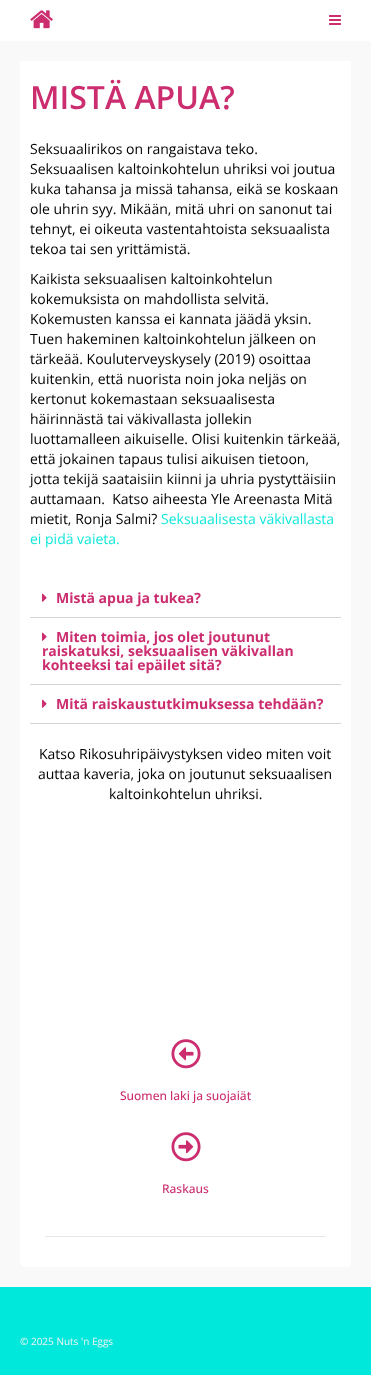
(async () => {
    const canvas = document.querySelector("canvas");
    canvas.width = 371;
    canvas.height = 1390;
    const context = canvas.getContext("2d");
    context.miterLimit = 4;
    context.fontKerning = "normal";
    function write(s, x, y, font, color) {
        context.font = font;
        context.fillStyle = color;
        context.fillText(s, x, y);
    }
    function block(x, y, w, h, color) {
        context.fillStyle = color;
        context.fillRect(x, y, w, h);
    }
    async function photo(src, x, y, w, h) {
        const img = new Image();
        img.src = src;
        await img.decode();
        context.drawImage(img, x, y, w, h);
    }

    block(0, 0, 371, 1390, "rgb(255, 255, 255)");
    await photo("media/1.png", 30, 10, 23, 19);
    await photo("media/2.png", 329, 15, 12, 10);
    block(0, 41, 371, 1246, "rgb(249, 249, 249)");
    context.fillStyle = "rgb(255, 255, 255)";
    context.beginPath();
    context.roundRect(20, 61, 331, 1206, [0, 0, 5, 5]);
    context.fill();
    write("MISTÄ APUA?", 30, 109, "600 32px Open Sans", "rgb(203, 45, 111)");
    write("Seksuaalirikos on rangaistava teko.", 30, 154, "14px Open Sans", "rgb(0, 0, 0)");
    write("Seksuaalisen kaltoinkohtelun uhriksi voi joutua", 30, 174, "14px Open Sans", "rgb(0, 0, 0)");
    write("kuka tahansa ja missä tahansa, eikä se koskaan", 30, 194, "14px Open Sans", "rgb(0, 0, 0)");
    write("ole uhrin syy. Mikään, mitä uhri on sanonut tai", 30, 214, "14px Open Sans", "rgb(0, 0, 0)");
    write("tehnyt, ei oikeuta vastentahtoista seksuaalista", 30, 234, "14px Open Sans", "rgb(0, 0, 0)");
    write("tekoa tai sen yrittämistä.", 30, 254, "14px Open Sans", "rgb(0, 0, 0)");
    write("Kaikista seksuaalisen kaltoinkohtelun", 30, 284, "14px Open Sans", "rgb(0, 0, 0)");
    write("kokemuksista on mahdollista selvitä.", 30, 304, "14px Open Sans", "rgb(0, 0, 0)");
    write("Kokemusten kanssa ei kannata jäädä yksin.", 30, 324, "14px Open Sans", "rgb(0, 0, 0)");
    write("Tuen hakeminen kaltoinkohtelun jälkeen on", 30, 344, "14px Open Sans", "rgb(0, 0, 0)");
    write("tärkeää. Kouluterveyskysely (2019) osoittaa", 30, 364, "14px Open Sans", "rgb(0, 0, 0)");
    write("kuitenkin, että nuorista noin joka neljäs on", 30, 384, "14px Open Sans", "rgb(0, 0, 0)");
    write("kertonut kokemastaan seksuaalisesta", 30, 404, "14px Open Sans", "rgb(0, 0, 0)");
    write("häirinnästä tai väkivallasta jollekin", 30, 424, "14px Open Sans", "rgb(0, 0, 0)");
    write("luottamalleen aikuiselle. Olisi kuitenkin tärkeää,", 30, 444, "14px Open Sans", "rgb(0, 0, 0)");
    write("että jokainen tapaus tulisi aikuisen tietoon,", 30, 464, "14px Open Sans", "rgb(0, 0, 0)");
    write("jotta tekijä saataisiin kiinni ja uhria pystyttäisiin", 30, 484, "14px Open Sans", "rgb(0, 0, 0)");
    write("auttamaan.  Katso aiheesta Yle Areenasta Mitä", 30, 504, "14px Open Sans", "rgb(0, 0, 0)");
    write("mietit, Ronja Salmi?", 30, 524, "14px Open Sans", "rgb(0, 0, 0)");
    write("Seksuaalisesta väkivallasta", 161, 524, "14px Open Sans", "rgb(16, 231, 220)");
    write("ei pidä vaieta.", 30, 544, "14px Open Sans", "rgb(16, 231, 220)");
    block(30, 617, 311, 1, "rgb(212, 212, 212)");
    await photo("media/3.png", 42, 593, 5, 9);
    write("Mistä apua ja tukea?", 56, 603, "bold 14px Open Sans", "rgb(203, 45, 111)");
    block(30, 684, 311, 1, "rgb(212, 212, 212)");
    await photo("media/3.png", 42, 632, 5, 9);
    write("Miten toimia, jos olet joutunut", 56, 642, "bold 14px Open Sans", "rgb(203, 45, 111)");
    write("raiskatuksi, seksuaalisen väkivallan", 42, 656, "bold 14px Open Sans", "rgb(203, 45, 111)");
    write("kohteeksi tai epäilet sitä?", 42, 670, "bold 14px Open Sans", "rgb(203, 45, 111)");
    block(30, 723, 311, 1, "rgb(212, 212, 212)");
    await photo("media/3.png", 42, 699, 5, 9);
    write("Mitä raiskaustutkimuksessa tehdään?", 56, 709, "bold 14px Open Sans", "rgb(203, 45, 111)");
    write("Katso Rikosuhripäivystyksen video miten voit", 39, 759, "14px Open Sans", "rgb(0, 0, 0)");
    write("auttaa kaveria, joka on joutunut seksuaalisen", 38, 779, "14px Open Sans", "rgb(0, 0, 0)");
    write("kaltoinkohtelun uhriksi.", 109, 799, "14px Open Sans", "rgb(0, 0, 0)");
    await photo("media/4.png", 171, 1039, 30, 30);
    write("Suomen laki ja suojaiät", 120, 1100, "500 12px Open Sans", "rgb(203, 45, 111)");
    await photo("media/5.png", 171, 1132, 30, 30);
    write("Raskaus", 162, 1193, "500 12px Open Sans", "rgb(203, 45, 111)");
    block(45, 1236, 281, 1, "rgb(230, 230, 230)");
    block(0, 1287, 371, 88, "rgb(0, 232, 220)");
    write("© 2025 Nuts 'n Eggs", 20, 1345, "10px Open Sans", "rgb(242, 242, 242)");
})();
